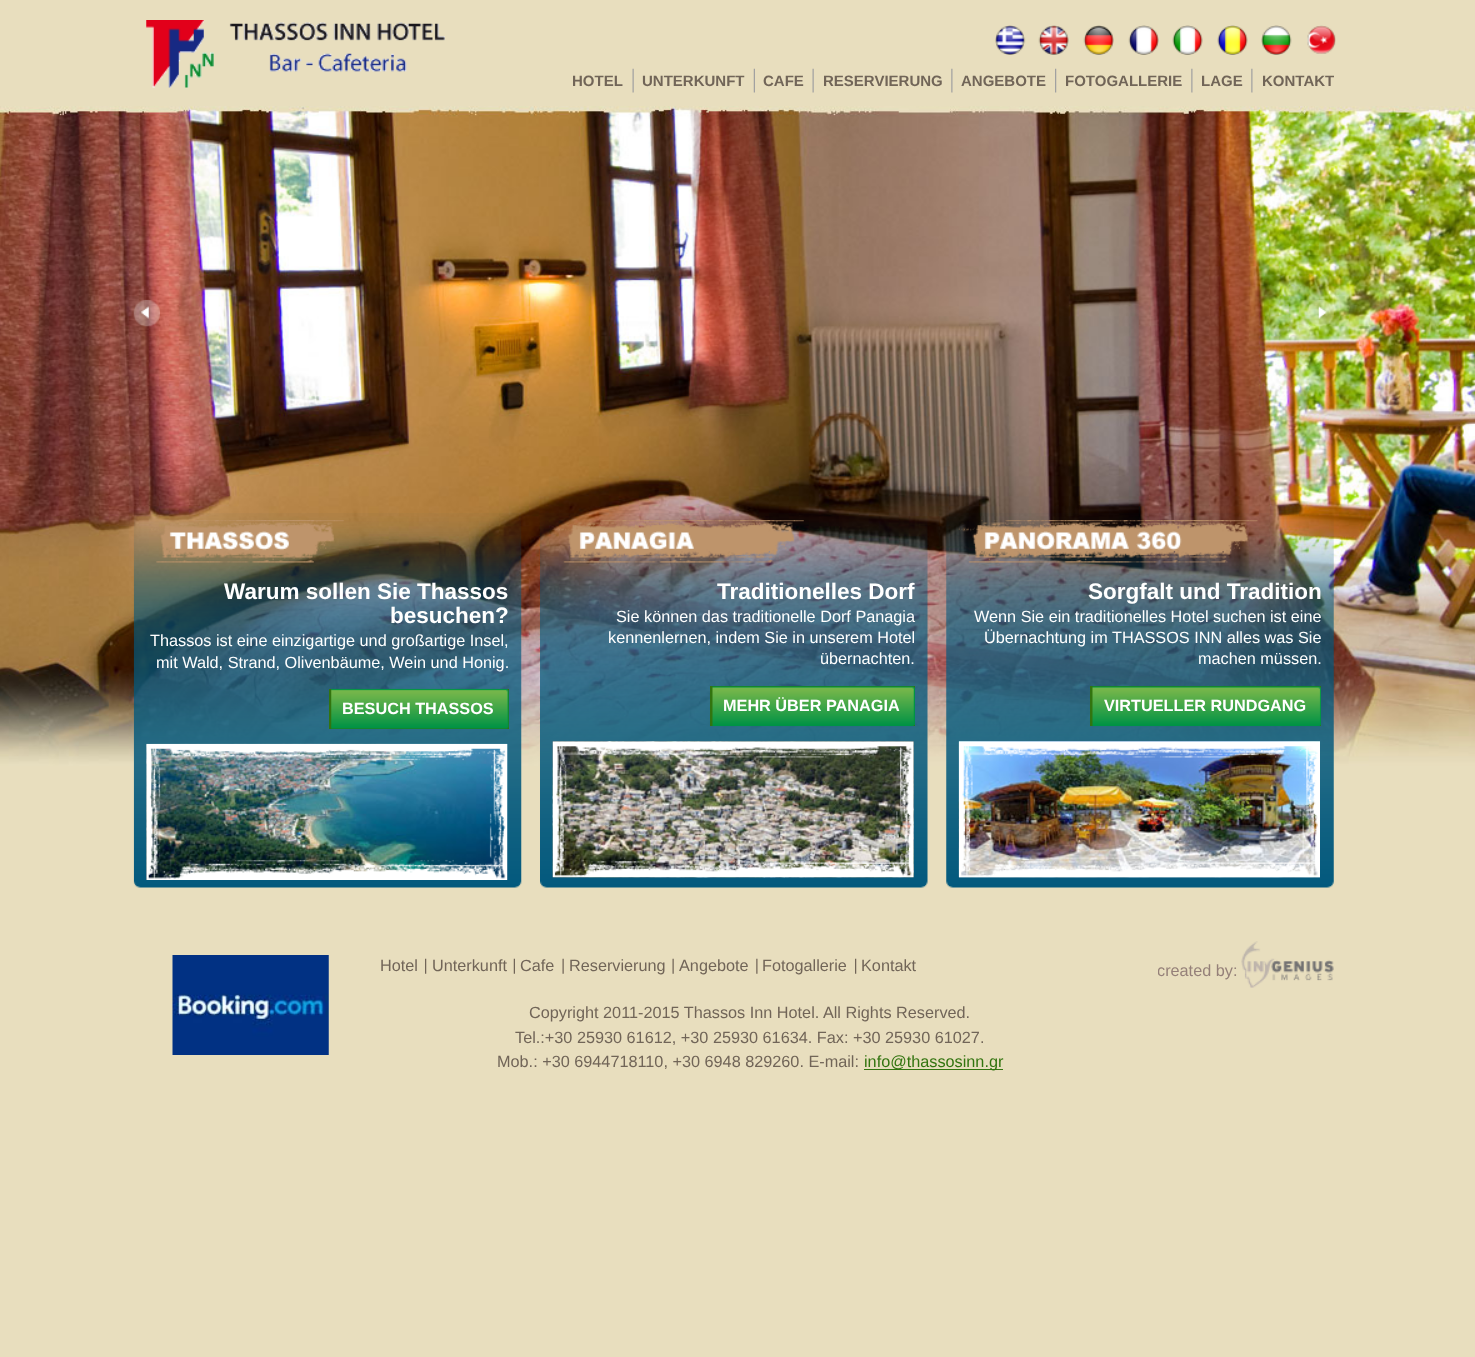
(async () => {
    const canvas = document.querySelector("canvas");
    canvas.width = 1475;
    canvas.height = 1357;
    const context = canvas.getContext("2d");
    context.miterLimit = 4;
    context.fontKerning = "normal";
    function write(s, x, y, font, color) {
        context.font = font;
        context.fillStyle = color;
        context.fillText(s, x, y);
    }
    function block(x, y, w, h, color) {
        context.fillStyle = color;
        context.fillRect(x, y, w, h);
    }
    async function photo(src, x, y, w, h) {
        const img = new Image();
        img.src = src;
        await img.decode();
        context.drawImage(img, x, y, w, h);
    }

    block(0, 0, 1475, 1357, "rgb(232, 222, 190)");
    await photo("media/1.png", 146, 20, 299, 68);
    await photo("media/2.png", 995, 25, 31, 30);
    await photo("media/3.png", 1038, 25, 31, 30);
    await photo("media/4.png", 1083, 25, 31, 30);
    await photo("media/5.png", 1128, 25, 31, 30);
    await photo("media/6.png", 1172, 25, 31, 30);
    await photo("media/7.png", 1217, 25, 31, 30);
    await photo("media/8.png", 1261, 25, 31, 30);
    await photo("media/9.png", 1307, 25, 29, 29);
    write("HOTEL", 572, 86, "bold 15px Liberation Sans", "rgb(113, 101, 88)");
    await photo("media/10.png", 632, 68, 2, 25);
    write("UNTERKUNFT", 642, 86, "bold 15px Liberation Sans", "rgb(113, 101, 88)");
    await photo("media/11.png", 753, 68, 2, 25);
    write("CAFE", 763, 86, "bold 15px Liberation Sans", "rgb(113, 101, 88)");
    await photo("media/10.png", 812, 68, 2, 25);
    write("RESERVIERUNG", 823, 86, "bold 15px Liberation Sans", "rgb(113, 101, 88)");
    await photo("media/12.png", 951, 68, 2, 25);
    write("ANGEBOTE", 961, 86, "bold 15px Liberation Sans", "rgb(113, 101, 88)");
    await photo("media/13.png", 1055, 68, 2, 25);
    write("FOTOGALLERIE", 1065, 86, "bold 15px Liberation Sans", "rgb(113, 101, 88)");
    await photo("media/12.png", 1191, 68, 2, 25);
    write("LAGE", 1201, 86, "bold 15px Liberation Sans", "rgb(113, 101, 88)");
    await photo("media/12.png", 1251, 68, 2, 25);
    write("KONTAKT", 1262, 86, "bold 15px Liberation Sans", "rgb(113, 101, 88)");
    await photo("media/14.png", 0, 106, 1475, 1);
    await photo("media/15.png", 0, 106, 1475, 1);
    await photo("media/16.png", 0, 106, 1475, 1);
    await photo("media/17.png", 0, 106, 1475, 1);
    await photo("media/18.png", 0, 106, 1475, 1);
    await photo("media/19.png", 0, 106, 1475, 660);
    await photo("media/20.png", 133, 300, 27, 27);
    await photo("media/21.png", 1307, 300, 27, 27);
    await photo("media/22.png", 133, 513, 389, 375);
    await photo("media/23.png", 151, 520, 193, 43);
    write("Warum sollen Sie Thassos", 224, 599, "bold 22.5px Liberation Sans", "rgb(255, 255, 255)");
    write("besuchen?", 390, 623, "bold 22.5px Liberation Sans", "rgb(255, 255, 255)");
    write("Thassos ist eine einzigartige und großartige Insel,", 150, 646, "16.25px Liberation Sans", "rgb(255, 255, 255)");
    write("mit Wald, Strand, Olivenbäume, Wein und Honig.", 156, 668, "16.25px Liberation Sans", "rgb(255, 255, 255)");
    block(329, 689, 180, 40, "rgb(50, 116, 15)");
    await photo("media/24.png", 331, 688, 178, 41);
    write("BESUCH THASSOS", 342, 714, "bold 16.25px Liberation Sans", "rgb(255, 255, 255)");
    await photo("media/25.png", 146, 743, 362, 137);
    await photo("media/26.png", 146, 743, 362, 137);
    await photo("media/27.png", 540, 513, 388, 375);
    await photo("media/28.png", 552, 520, 252, 43);
    write("Traditionelles Dorf", 717, 599, "bold 22.5px Liberation Sans", "rgb(255, 255, 255)");
    write("Sie können das traditionelle Dorf Panagia", 616, 622, "16.25px Liberation Sans", "rgb(255, 255, 255)");
    write("kennenlernen, indem Sie in unserem Hotel", 608, 643, "16.25px Liberation Sans", "rgb(255, 255, 255)");
    write("übernachten.", 820, 664, "16.25px Liberation Sans", "rgb(255, 255, 255)");
    block(710, 686, 205, 40, "rgb(50, 116, 15)");
    await photo("media/29.png", 712, 686, 203, 41);
    write("MEHR ÜBER PANAGIA", 723, 711, "bold 16.25px Liberation Sans", "rgb(255, 255, 255)");
    await photo("media/30.png", 552, 741, 362, 137);
    await photo("media/31.png", 552, 741, 362, 137);
    await photo("media/32.png", 946, 513, 388, 375);
    await photo("media/33.png", 958, 520, 300, 43);
    write("Sorgfalt und Tradition", 1088, 599, "bold 22.5px Liberation Sans", "rgb(255, 255, 255)");
    write("Wenn Sie ein traditionelles Hotel suchen ist eine", 974, 622, "16.25px Liberation Sans", "rgb(255, 255, 255)");
    write("Übernachtung im THASSOS INN alles was Sie", 984, 643, "16.25px Liberation Sans", "rgb(255, 255, 255)");
    write("machen müssen.", 1198, 664, "16.25px Liberation Sans", "rgb(255, 255, 255)");
    block(1090, 686, 231, 40, "rgb(50, 116, 15)");
    await photo("media/34.png", 1092, 686, 229, 41);
    write("VIRTUELLER RUNDGANG", 1104, 711, "bold 16.25px Liberation Sans", "rgb(255, 255, 255)");
    await photo("media/35.png", 958, 741, 362, 137);
    await photo("media/36.png", 958, 741, 362, 137);
    await photo("media/37.png", 172, 955, 157, 100);
    write("Hotel", 380, 971, "16.25px Liberation Sans", "rgb(113, 101, 88)");
    await photo("media/38.png", 425, 958, 2, 16);
    write("Unterkunft", 432, 971, "16.25px Liberation Sans", "rgb(113, 101, 88)");
    await photo("media/39.png", 513, 958, 2, 16);
    write("Cafe", 520, 971, "16.25px Liberation Sans", "rgb(113, 101, 88)");
    await photo("media/40.png", 562, 958, 2, 16);
    write("Reservierung", 569, 971, "16.25px Liberation Sans", "rgb(113, 101, 88)");
    await photo("media/40.png", 672, 958, 2, 16);
    write("Angebote", 679, 971, "16.25px Liberation Sans", "rgb(113, 101, 88)");
    await photo("media/41.png", 756, 958, 2, 16);
    write("Fotogallerie", 762, 971, "16.25px Liberation Sans", "rgb(113, 101, 88)");
    await photo("media/38.png", 855, 958, 2, 16);
    write("Kontakt", 861, 971, "16.25px Liberation Sans", "rgb(113, 101, 88)");
    write("Copyright 2011-2015 Thassos Inn Hotel. All Rights Reserved.", 529, 1018, "16.25px Liberation Sans", "rgb(113, 101, 88)");
    write("Tel.:+30 25930 61612, +30 25930 61634. Fax: +30 25930 61027.", 515, 1043, "16.25px Liberation Sans", "rgb(113, 101, 88)");
    write("Mob.: +30 6944718110, +30 6948 829260. E-mail:", 497, 1067, "16.25px Liberation Sans", "rgb(113, 101, 88)");
    block(864, 1069, 139, 1, "rgb(50, 116, 15)");
    write("info@thassosinn.gr", 864, 1067, "16.25px Liberation Sans", "rgb(50, 116, 15)");
    context.save();
    context.beginPath();
    context.rect(1158, 928, 180, 100);
    context.clip();
    write("created by:", 1157, 976, "16.25px Liberation Sans", "rgb(149, 128, 121)");
    context.restore();
    await photo("media/42.png", 1241, 941, 93, 47);
})();
